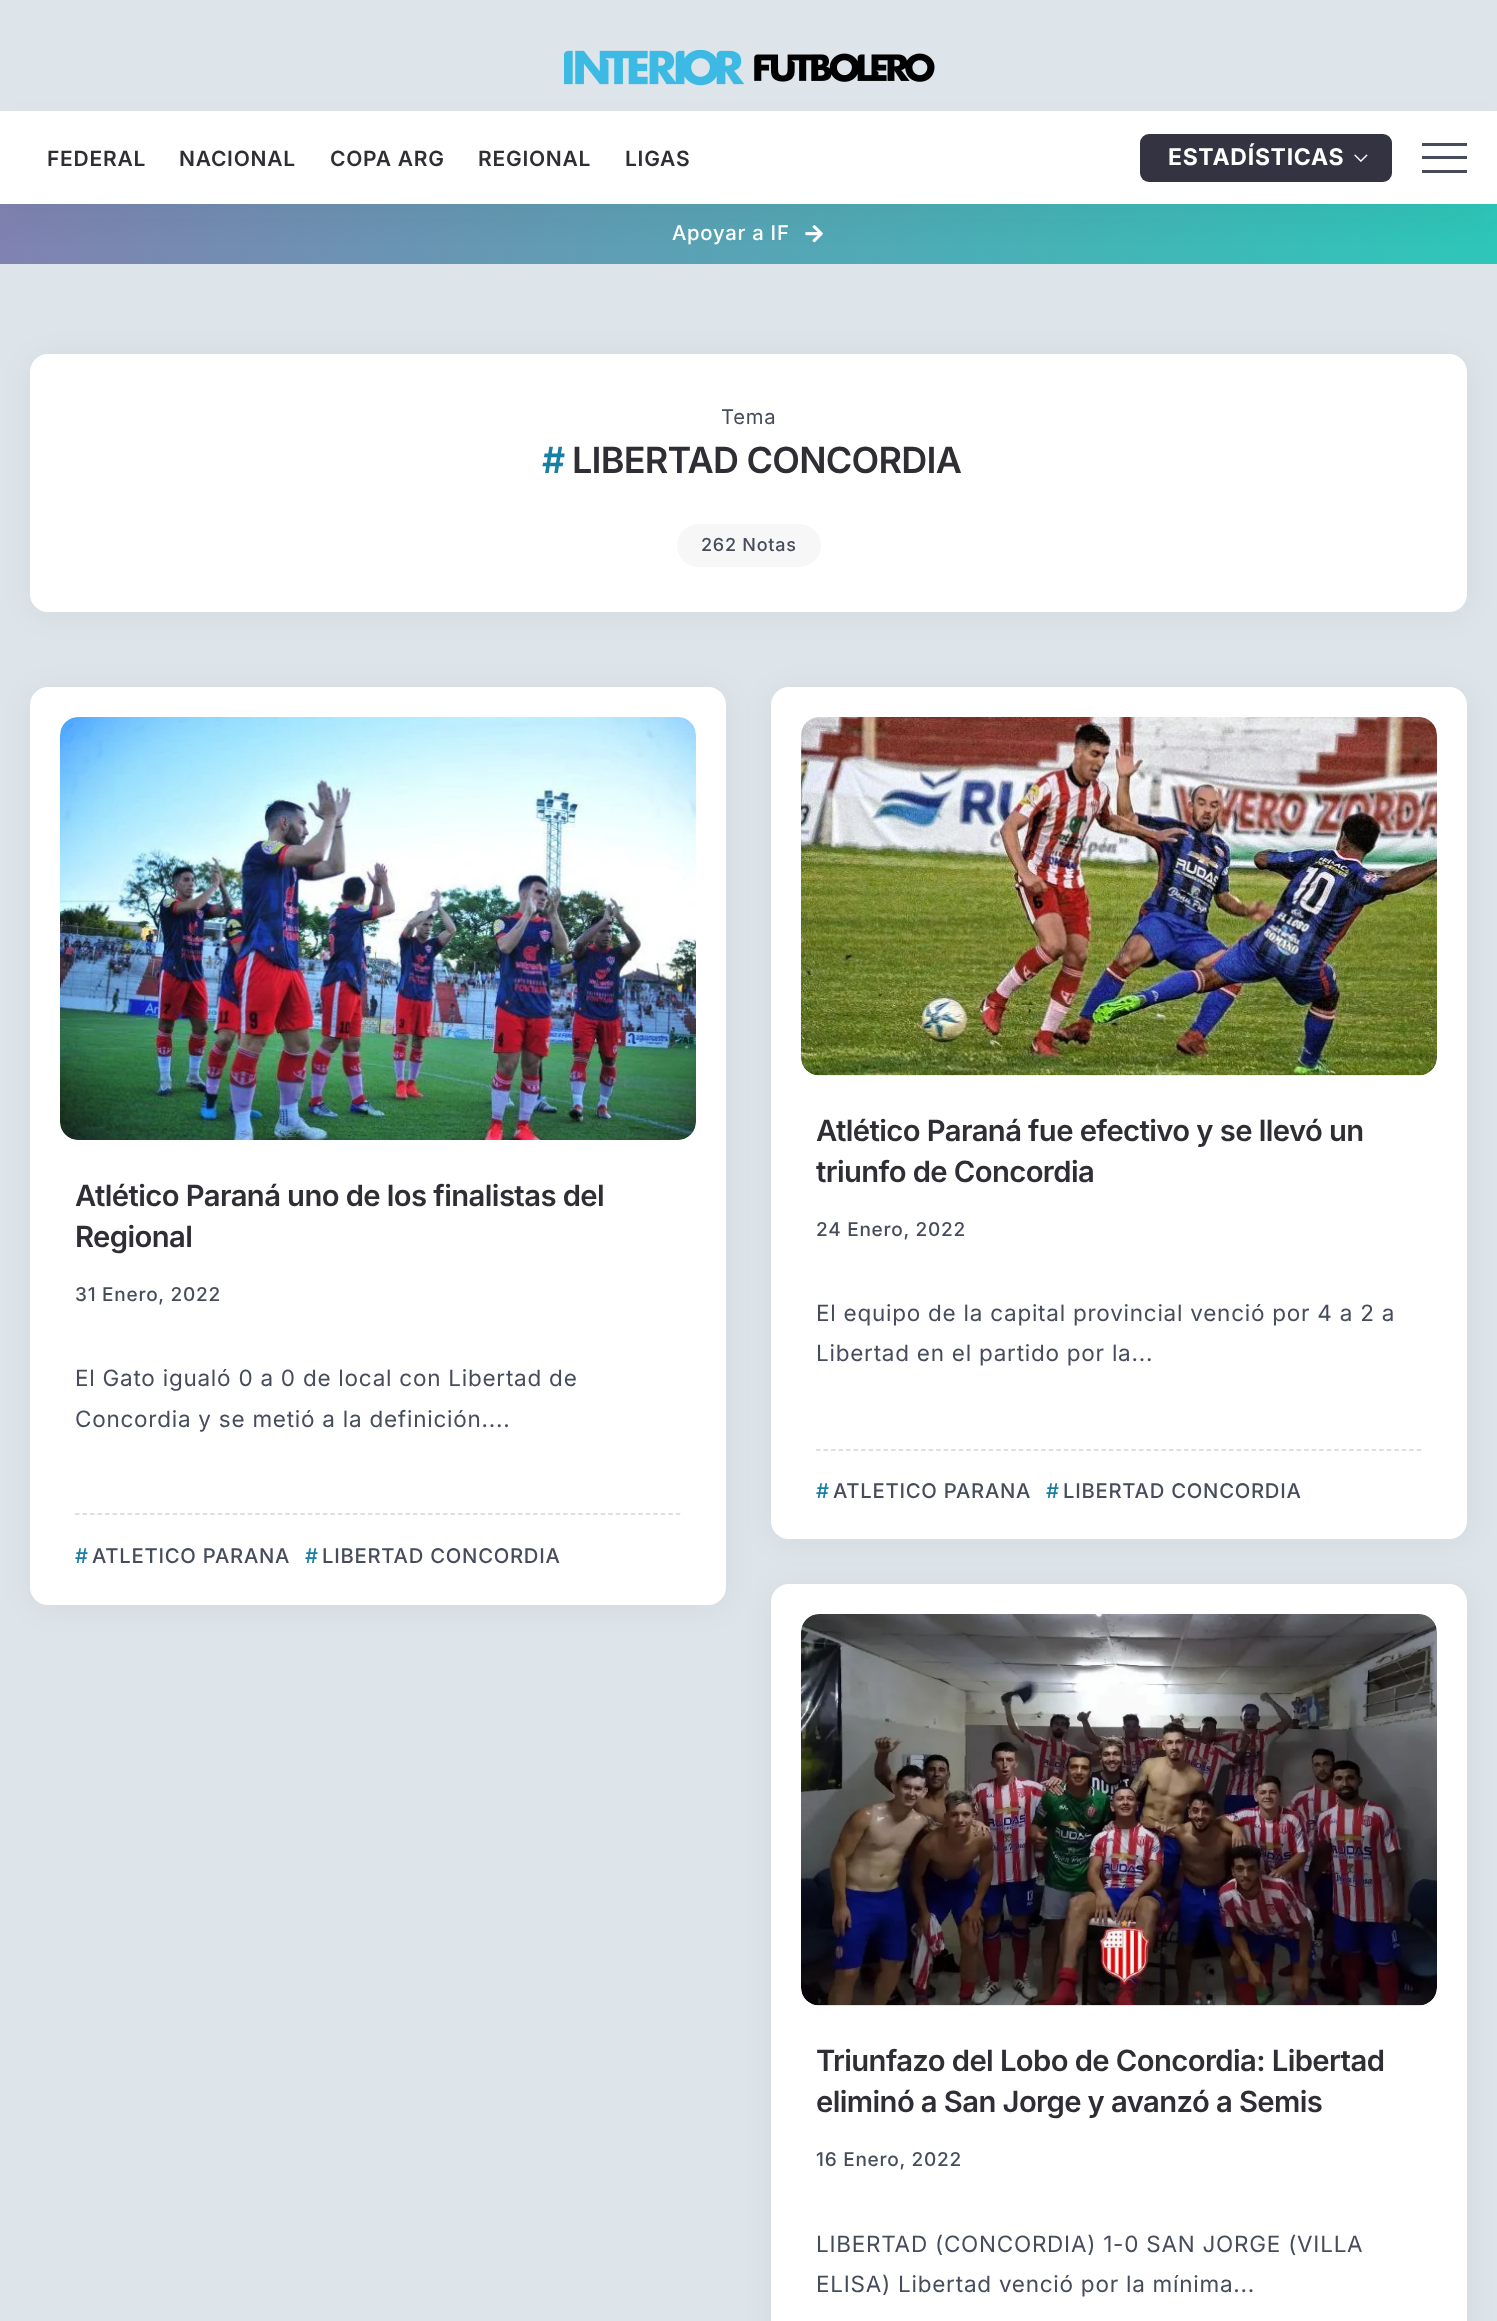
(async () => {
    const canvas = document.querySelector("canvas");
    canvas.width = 1497;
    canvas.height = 2321;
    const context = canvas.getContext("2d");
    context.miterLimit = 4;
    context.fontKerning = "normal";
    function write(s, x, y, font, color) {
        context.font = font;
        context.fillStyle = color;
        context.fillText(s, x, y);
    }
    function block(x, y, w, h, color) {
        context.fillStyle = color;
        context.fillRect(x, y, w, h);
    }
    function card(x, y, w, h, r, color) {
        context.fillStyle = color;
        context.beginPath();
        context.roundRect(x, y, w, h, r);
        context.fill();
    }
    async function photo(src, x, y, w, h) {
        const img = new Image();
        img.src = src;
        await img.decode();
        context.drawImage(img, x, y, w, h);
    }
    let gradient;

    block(0, 0, 1497, 2321, "rgb(222, 229, 234)");
    await photo("media/1.png", 564, 50, 371, 36);
    gradient = context.createLinearGradient(43, 423, 1454, 45);
    gradient.addColorStop(0, "rgb(128, 130, 177)");
    gradient.addColorStop(1, "rgb(45, 199, 185)");
    context.fillStyle = gradient;
    context.fillRect(0, 204, 1497, 60);
    await photo("media/3.png", 805, 225, 18, 18);
    context.fillStyle = "rgba(14, 14, 19, 0.05)";
    context.filter = "blur(15px)";
    context.beginPath();
    context.rect(0, 126, 1497, 93);
    context.fill();
    context.filter = "none";
    block(0, 111, 1497, 93, "rgb(255, 255, 255)");
    context.letterSpacing = "0.75px";
    write("FEDERAL", 47, 166, "600 21px Inter", "rgb(47, 46, 53)");
    write("NACIONAL", 179, 166, "600 21px Inter", "rgb(47, 46, 53)");
    write("COPA ARG", 330, 166, "600 21px Inter", "rgb(47, 46, 53)");
    write("REGIONAL", 478, 166, "600 21px Inter", "rgb(47, 46, 53)");
    write("LIGAS", 625, 166, "600 21px Inter", "rgb(47, 46, 53)");
    card(1140, 134, 252, 48, 9, "rgb(52, 51, 65)");
    write("ESTADÍSTICAS", 1168, 165, "bold 23px Inter", "rgb(255, 255, 255)");
    await photo("media/2.png", 1354, 154, 14, 8);
    block(1422, 143, 45, 3, "rgb(71, 76, 93)");
    block(1422, 156, 45, 3, "rgb(71, 76, 93)");
    block(1422, 170, 45, 3, "rgb(71, 76, 93)");
    write("Apoyar a IF", 672, 240, "500 20.25px Inter", "rgb(255, 255, 255)");
    context.fillStyle = "rgba(14, 14, 19, 0.05)";
    context.filter = "blur(15px)";
    context.beginPath();
    context.roundRect(30, 357, 1437, 258, 18);
    context.fill();
    context.filter = "none";
    card(30, 354, 1437, 258, 18, "rgb(255, 255, 255)");
    write("Tema", 721, 424, "20.25px Inter", "rgb(71, 76, 93)");
    context.letterSpacing = "-0.75px";
    write("#", 542, 473, "600 36px Inter", "rgb(21, 127, 165)");
    write("LIBERTAD CONCORDIA", 572, 473, "600 36px Inter", "rgb(47, 46, 53)");
    card(677, 524, 144, 43, 21.5, "rgb(247, 247, 247)");
    context.letterSpacing = "0.75px";
    write("262 Notas", 701, 551, "500 18px Inter", "rgb(71, 76, 93)");
    context.fillStyle = "rgba(14, 14, 19, 0.05)";
    context.filter = "blur(15px)";
    context.beginPath();
    context.roundRect(30, 690, 696, 918, 18);
    context.fill();
    context.filter = "none";
    card(30, 687, 696, 918, 18, "rgb(255, 255, 255)");
    await photo("media/4.png", 60, 717, 636, 423);
    context.letterSpacing = "-0.6px";
    write("Atlético Paraná uno de los finalistas del", 75, 1206, "600 29.25px Inter", "rgb(47, 46, 53)");
    write("Regional", 75, 1247, "600 29.25px Inter", "rgb(47, 46, 53)");
    context.letterSpacing = "0.75px";
    write("31 Enero, 2022", 75, 1301, "500 19px Inter", "rgb(71, 76, 93)");
    write("El Gato igualó 0 a 0 de local con Libertad de", 75, 1386, "22.5px Inter", "rgb(71, 76, 93)");
    write("Concordia y se metió a la definición....", 75, 1427, "22.5px Inter", "rgb(71, 76, 93)");
    context.beginPath();
    context.moveTo(75, 1514);
    context.lineTo(681, 1514);
    context.strokeStyle = "rgb(212, 212, 218)";
    context.lineWidth = 1.5;
    context.setLineDash([4.5, 3.01]);
    context.stroke();
    write("#", 75, 1563, "500 20.25px Inter", "rgb(21, 127, 165)");
    write("ATLETICO PARANA", 92, 1563, "500 20.25px Inter", "rgb(71, 76, 93)");
    write("#", 305, 1563, "500 20.25px Inter", "rgb(21, 127, 165)");
    write("LIBERTAD CONCORDIA", 322, 1563, "500 20.25px Inter", "rgb(71, 76, 93)");
    context.fillStyle = "rgba(14, 14, 19, 0.05)";
    context.filter = "blur(15px)";
    context.beginPath();
    context.roundRect(771, 690, 696, 852, 18);
    context.fill();
    context.filter = "none";
    card(771, 687, 696, 852, 18, "rgb(255, 255, 255)");
    await photo("media/5.png", 801, 717, 636, 359);
    context.letterSpacing = "-0.6px";
    write("Atlético Paraná fue efectivo y se llevó un", 816, 1141, "600 29.25px Inter", "rgb(47, 46, 53)");
    write("triunfo de Concordia", 816, 1182, "600 29.25px Inter", "rgb(47, 46, 53)");
    context.letterSpacing = "0.75px";
    write("24 Enero, 2022", 816, 1236, "500 19px Inter", "rgb(71, 76, 93)");
    write("El equipo de la capital provincial venció por 4 a 2 a", 816, 1321, "22.5px Inter", "rgb(71, 76, 93)");
    write("Libertad en el partido por la...", 816, 1361, "22.5px Inter", "rgb(71, 76, 93)");
    context.beginPath();
    context.moveTo(816, 1450);
    context.lineTo(1422, 1450);
    context.stroke();
    write("#", 816, 1498, "500 20.25px Inter", "rgb(21, 127, 165)");
    write("ATLETICO PARANA", 833, 1498, "500 20.25px Inter", "rgb(71, 76, 93)");
    write("#", 1046, 1498, "500 20.25px Inter", "rgb(21, 127, 165)");
    write("LIBERTAD CONCORDIA", 1063, 1498, "500 20.25px Inter", "rgb(71, 76, 93)");
    context.fillStyle = "rgba(14, 14, 19, 0.05)";
    context.filter = "blur(15px)";
    context.beginPath();
    context.roundRect(771, 1587, 696, 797, 18);
    context.fill();
    context.filter = "none";
    card(771, 1584, 696, 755, 18, "rgb(255, 255, 255)");
    await photo("media/6.png", 801, 1614, 636, 392);
    context.letterSpacing = "-0.6px";
    write("Triunfazo del Lobo de Concordia: Libertad", 816, 2071, "600 29.25px Inter", "rgb(47, 46, 53)");
    write("eliminó a San Jorge y avanzó a Semis", 816, 2112, "600 29.25px Inter", "rgb(47, 46, 53)");
    context.letterSpacing = "0.75px";
    write("16 Enero, 2022", 816, 2166, "500 19px Inter", "rgb(71, 76, 93)");
    write("LIBERTAD (CONCORDIA) 1-0 SAN JORGE (VILLA", 816, 2252, "22.5px Inter", "rgb(71, 76, 93)");
    write("ELISA) Libertad venció por la mínima...", 816, 2292, "22.5px Inter", "rgb(71, 76, 93)");
})();
